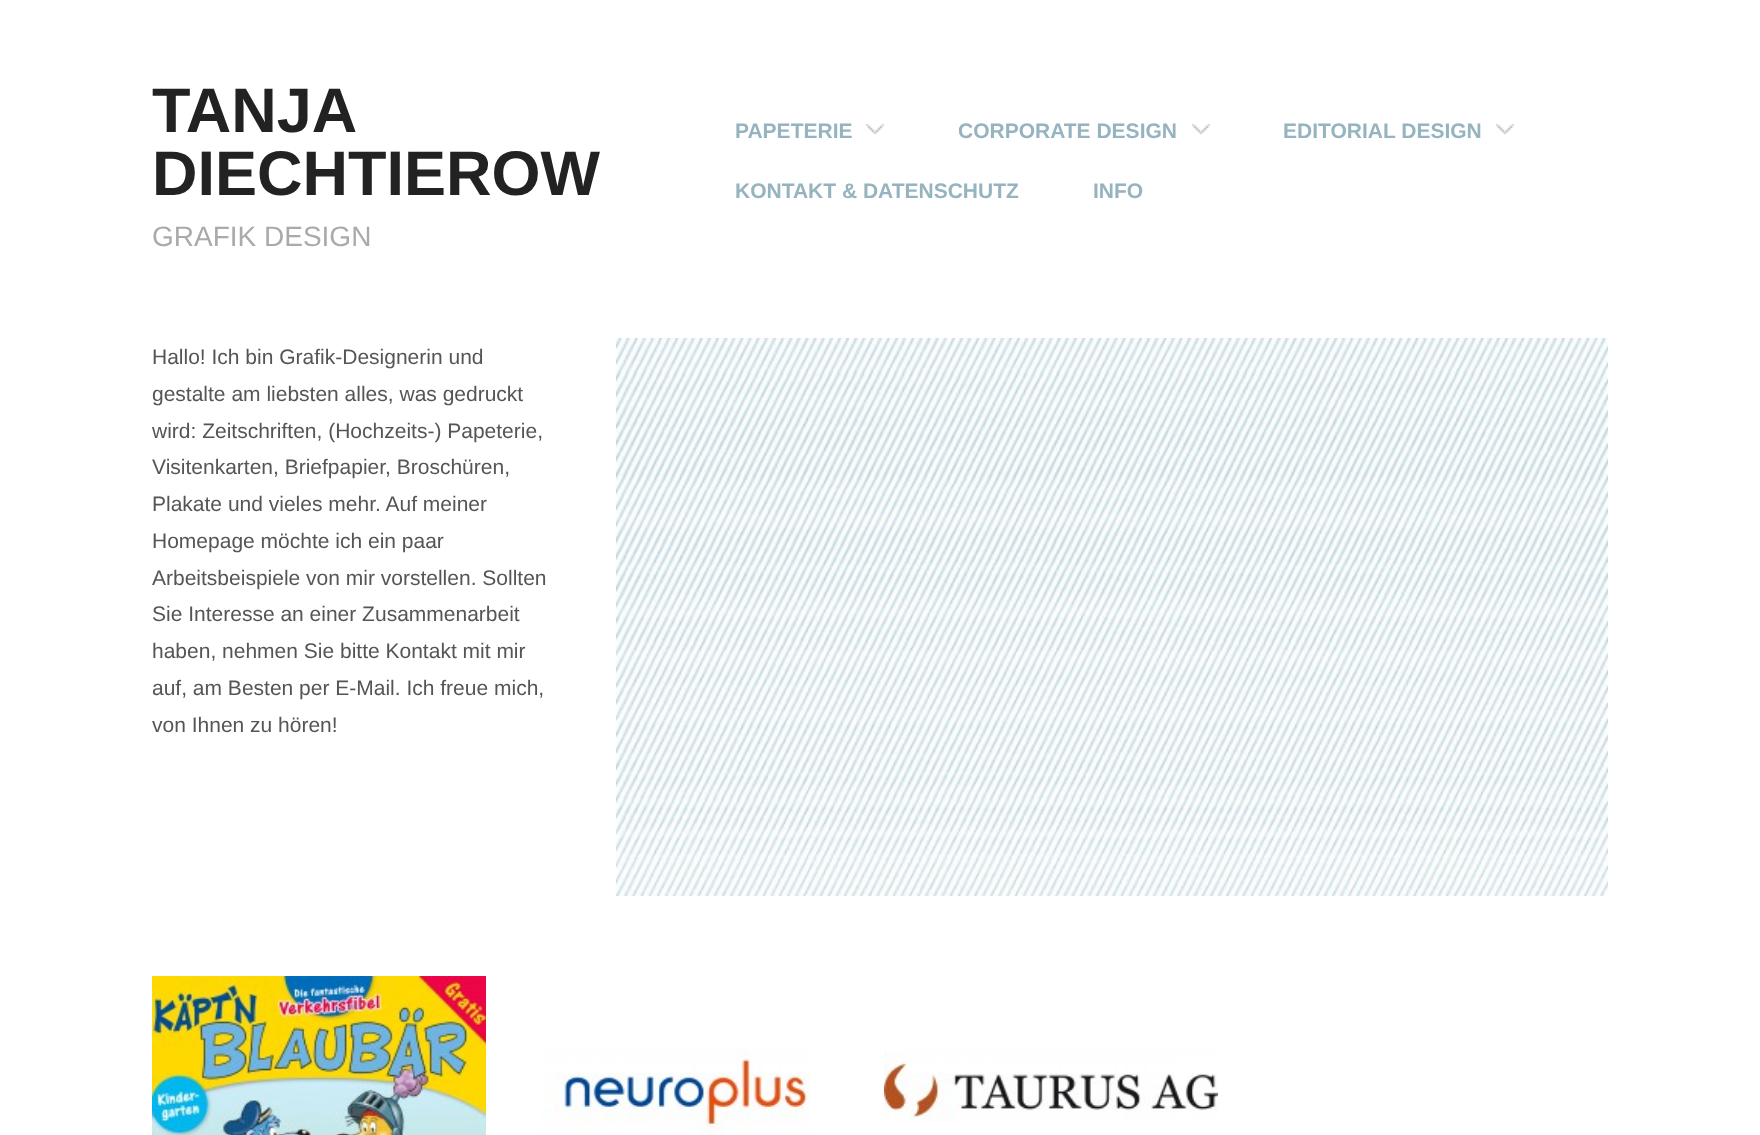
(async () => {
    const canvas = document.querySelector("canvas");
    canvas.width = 1760;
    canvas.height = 1135;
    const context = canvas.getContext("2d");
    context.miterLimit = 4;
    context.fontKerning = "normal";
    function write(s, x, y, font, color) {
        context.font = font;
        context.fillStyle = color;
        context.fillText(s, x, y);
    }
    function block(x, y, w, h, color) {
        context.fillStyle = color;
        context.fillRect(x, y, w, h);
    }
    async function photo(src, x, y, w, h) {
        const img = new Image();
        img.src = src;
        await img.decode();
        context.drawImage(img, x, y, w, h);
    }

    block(0, 0, 1760, 1135, "rgb(255, 255, 255)");
    write("TANJA", 152, 132, "bold 63px Liberation Sans", "rgb(34, 34, 34)");
    write("DIECHTIEROW", 152, 195, "bold 63px Liberation Sans", "rgb(34, 34, 34)");
    write("GRAFIK DESIGN", 152, 246, "28px Liberation Sans", "rgb(170, 170, 170)");
    await photo("media/1.png", 866, 124, 18, 10);
    write("PAPETERIE", 735, 138, "bold 21px Liberation Sans", "rgb(150, 180, 191)");
    await photo("media/1.png", 1192, 124, 18, 10);
    write("CORPORATE DESIGN", 958, 138, "bold 21px Liberation Sans", "rgb(150, 180, 191)");
    await photo("media/1.png", 1496, 124, 18, 10);
    write("EDITORIAL DESIGN", 1283, 138, "bold 21px Liberation Sans", "rgb(150, 180, 191)");
    write("KONTAKT & DATENSCHUTZ", 735, 198, "bold 21px Liberation Sans", "rgb(150, 180, 191)");
    write("INFO", 1093, 198, "bold 21px Liberation Sans", "rgb(150, 180, 191)");
    write("Hallo! Ich bin Grafik-Designerin und", 152, 364, "21px Liberation Sans", "rgb(85, 85, 85)");
    write("gestalte am liebsten alles, was gedruckt", 152, 401, "21px Liberation Sans", "rgb(85, 85, 85)");
    write("wird: Zeitschriften, (Hochzeits-) Papeterie,", 152, 438, "21px Liberation Sans", "rgb(85, 85, 85)");
    write("Visitenkarten, Briefpapier, Broschüren,", 152, 474, "21px Liberation Sans", "rgb(85, 85, 85)");
    write("Plakate und vieles mehr. Auf meiner", 152, 511, "21px Liberation Sans", "rgb(85, 85, 85)");
    write("Homepage möchte ich ein paar", 152, 548, "21px Liberation Sans", "rgb(85, 85, 85)");
    write("Arbeitsbeispiele von mir vorstellen. Sollten", 152, 585, "21px Liberation Sans", "rgb(85, 85, 85)");
    write("Sie Interesse an einer Zusammenarbeit", 152, 621, "21px Liberation Sans", "rgb(85, 85, 85)");
    write("haben, nehmen Sie bitte Kontakt mit mir", 152, 658, "21px Liberation Sans", "rgb(85, 85, 85)");
    write("auf, am Besten per E-Mail. Ich freue mich,", 152, 695, "21px Liberation Sans", "rgb(85, 85, 85)");
    write("von Ihnen zu hören!", 152, 732, "21px Liberation Sans", "rgb(85, 85, 85)");
    await photo("media/2.png", 616, 338, 992, 558);
    await photo("media/3.png", 152, 976, 334, 159);
    await photo("media/4.png", 542, 1048, 268, 87);
    await photo("media/5.png", 884, 1049, 334, 73);
})();
